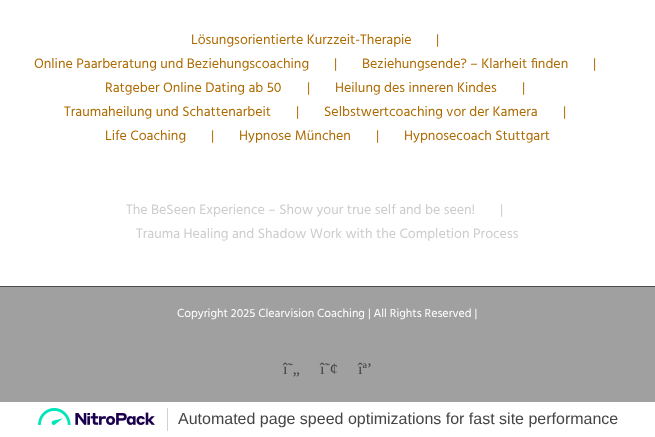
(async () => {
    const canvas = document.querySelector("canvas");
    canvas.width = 655;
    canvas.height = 437;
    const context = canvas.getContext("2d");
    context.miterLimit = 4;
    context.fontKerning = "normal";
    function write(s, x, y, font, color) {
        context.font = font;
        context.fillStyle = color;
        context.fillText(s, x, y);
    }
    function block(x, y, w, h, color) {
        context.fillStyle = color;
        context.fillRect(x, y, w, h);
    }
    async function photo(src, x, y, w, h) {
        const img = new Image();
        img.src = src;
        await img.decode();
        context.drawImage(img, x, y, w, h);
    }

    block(0, 0, 655, 437, "rgb(255, 255, 255)");
    write("Lösungsorientierte Kurzzeit-Therapie", 191, 44, "14px Hind", "rgb(173, 106, 0)");
    write("|", 436, 44, "14px Hind", "rgb(173, 106, 0)");
    write("Online Paarberatung und Beziehungscoaching", 34, 68, "14px Hind", "rgb(173, 106, 0)");
    write("|", 334, 68, "14px Hind", "rgb(173, 106, 0)");
    write("Beziehungsende? – Klarheit finden", 362, 68, "14px Hind", "rgb(173, 106, 0)");
    write("|", 593, 68, "14px Hind", "rgb(173, 106, 0)");
    write("Ratgeber Online Dating ab 50", 105, 92, "14px Hind", "rgb(173, 106, 0)");
    write("|", 307, 92, "14px Hind", "rgb(173, 106, 0)");
    write("Heilung des inneren Kindes", 335, 92, "14px Hind", "rgb(173, 106, 0)");
    write("|", 522, 92, "14px Hind", "rgb(173, 106, 0)");
    write("Traumaheilung und Schattenarbeit", 64, 116, "14px Hind", "rgb(173, 106, 0)");
    write("|", 296, 116, "14px Hind", "rgb(173, 106, 0)");
    write("Selbstwertcoaching vor der Kamera", 324, 116, "14px Hind", "rgb(173, 106, 0)");
    write("|", 563, 116, "14px Hind", "rgb(173, 106, 0)");
    write("Life Coaching", 105, 140, "14px Hind", "rgb(173, 106, 0)");
    write("|", 211, 140, "14px Hind", "rgb(173, 106, 0)");
    write("Hypnose München", 239, 140, "14px Hind", "rgb(173, 106, 0)");
    write("|", 376, 140, "14px Hind", "rgb(173, 106, 0)");
    write("Hypnosecoach Stuttgart", 404, 140, "14px Hind", "rgb(173, 106, 0)");
    write("The BeSeen Experience – Show your true self and be seen!", 126, 214, "14px Hind", "rgb(204, 204, 204)");
    write("|", 500, 214, "14px Hind", "rgb(204, 204, 204)");
    write("Trauma Healing and Shadow Work with the Completion Process", 136, 238, "14px Hind", "rgb(204, 204, 204)");
    block(0, 287, 655, 115, "rgb(160, 160, 160)");
    block(0, 286, 655, 1, "rgb(75, 76, 77)");
    write("Copyright 2025 Clearvision Coaching | All Rights Reserved |", 177, 317, "12px Hind", "rgb(255, 255, 255)");
    write("î˜„", 283, 374, "16px Liberation Serif", "rgb(69, 69, 69)");
    write("î˜¢", 320, 374, "16px Liberation Serif", "rgb(69, 69, 69)");
    write("îª’", 358, 374, "16px Liberation Serif", "rgb(69, 69, 69)");
    block(167, 408, 1, 23, "rgb(209, 209, 209)");
    await photo("media/1.png", 38, 408, 117, 17);
    write("Automated page speed optimizations for fast site performance", 178, 424, "16px Liberation Sans", "rgb(69, 69, 69)");
})();
